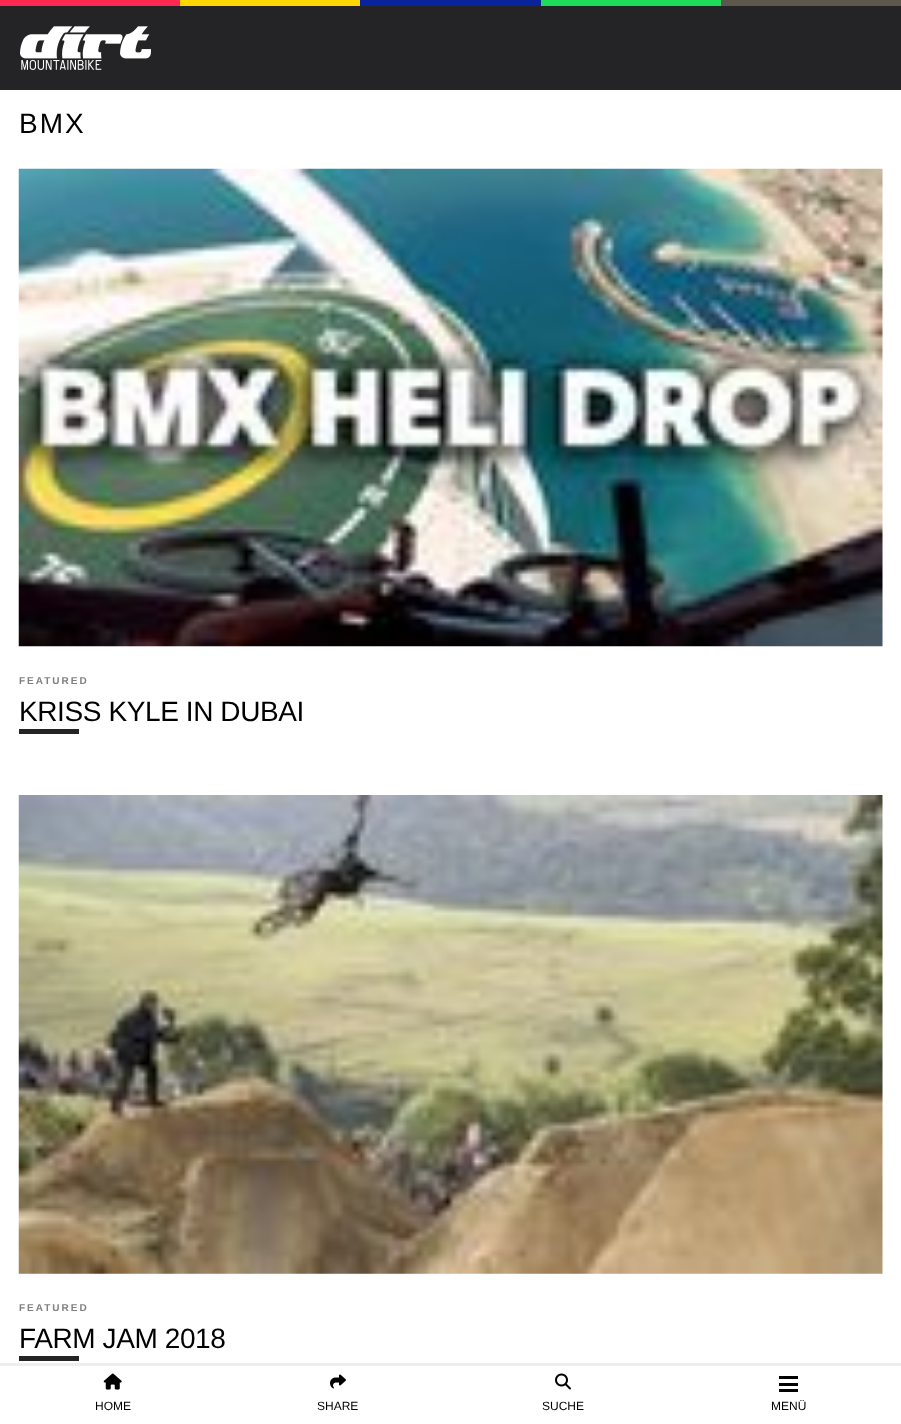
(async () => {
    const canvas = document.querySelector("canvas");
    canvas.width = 901;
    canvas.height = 1424;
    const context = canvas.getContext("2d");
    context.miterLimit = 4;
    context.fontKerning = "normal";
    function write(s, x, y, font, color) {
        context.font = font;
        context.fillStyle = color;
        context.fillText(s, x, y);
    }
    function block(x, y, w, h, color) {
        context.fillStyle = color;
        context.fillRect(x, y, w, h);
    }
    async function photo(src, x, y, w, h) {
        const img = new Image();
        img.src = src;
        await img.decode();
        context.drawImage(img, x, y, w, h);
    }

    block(0, 0, 901, 1424, "rgb(255, 255, 255)");
    block(0, 6, 901, 84, "rgb(36, 36, 38)");
    block(0, 0, 180, 6, "rgb(255, 40, 83)");
    block(180, 0, 180, 6, "rgb(255, 213, 2)");
    block(360, 0, 181, 6, "rgb(8, 35, 155)");
    block(541, 0, 180, 6, "rgb(28, 220, 89)");
    block(721, 0, 180, 6, "rgb(92, 88, 76)");
    await photo("media/1.png", 20, 26, 131, 44);
    context.letterSpacing = "2px";
    write("BMX", 19, 133, "28px Liberation Sans", "rgb(0, 0, 0)");
    await photo("media/2.png", 18, 168, 865, 479);
    write("FEATURED", 19, 684, "bold 10px Liberation Sans", "rgb(128, 128, 128)");
    context.letterSpacing = "-0.4px";
    write("KRISS KYLE IN DUBAI", 19, 721, "28px Liberation Sans", "rgb(0, 0, 0)");
    block(19, 729, 60, 5, "rgb(36, 36, 38)");
    await photo("media/3.png", 18, 795, 865, 479);
    context.letterSpacing = "2px";
    write("FEATURED", 19, 1311, "bold 10px Liberation Sans", "rgb(128, 128, 128)");
    context.letterSpacing = "-0.4px";
    write("FARM JAM 2018", 19, 1348, "28px Liberation Sans", "rgb(0, 0, 0)");
    block(19, 1356, 60, 5, "rgb(36, 36, 38)");
    block(0, 1363, 901, 3, "rgb(238, 238, 238)");
    await photo("media/4.png", 103, 1373, 19, 17);
    context.letterSpacing = "0px";
    write("HOME", 95, 1410, "12px Liberation Sans", "rgb(0, 0, 0)");
    await photo("media/5.png", 330, 1374, 16, 15);
    write("SHARE", 317, 1410, "12px Liberation Sans", "rgb(0, 0, 0)");
    await photo("media/6.png", 555, 1373, 16, 17);
    write("SUCHE", 542, 1410, "12px Liberation Sans", "rgb(0, 0, 0)");
    block(779, 1383, 19, 3, "rgb(0, 0, 0)");
    block(779, 1376, 19, 3, "rgb(0, 0, 0)");
    block(779, 1389, 19, 3, "rgb(0, 0, 0)");
    write("MENÜ", 771, 1410, "12px Liberation Sans", "rgb(0, 0, 0)");
})();
